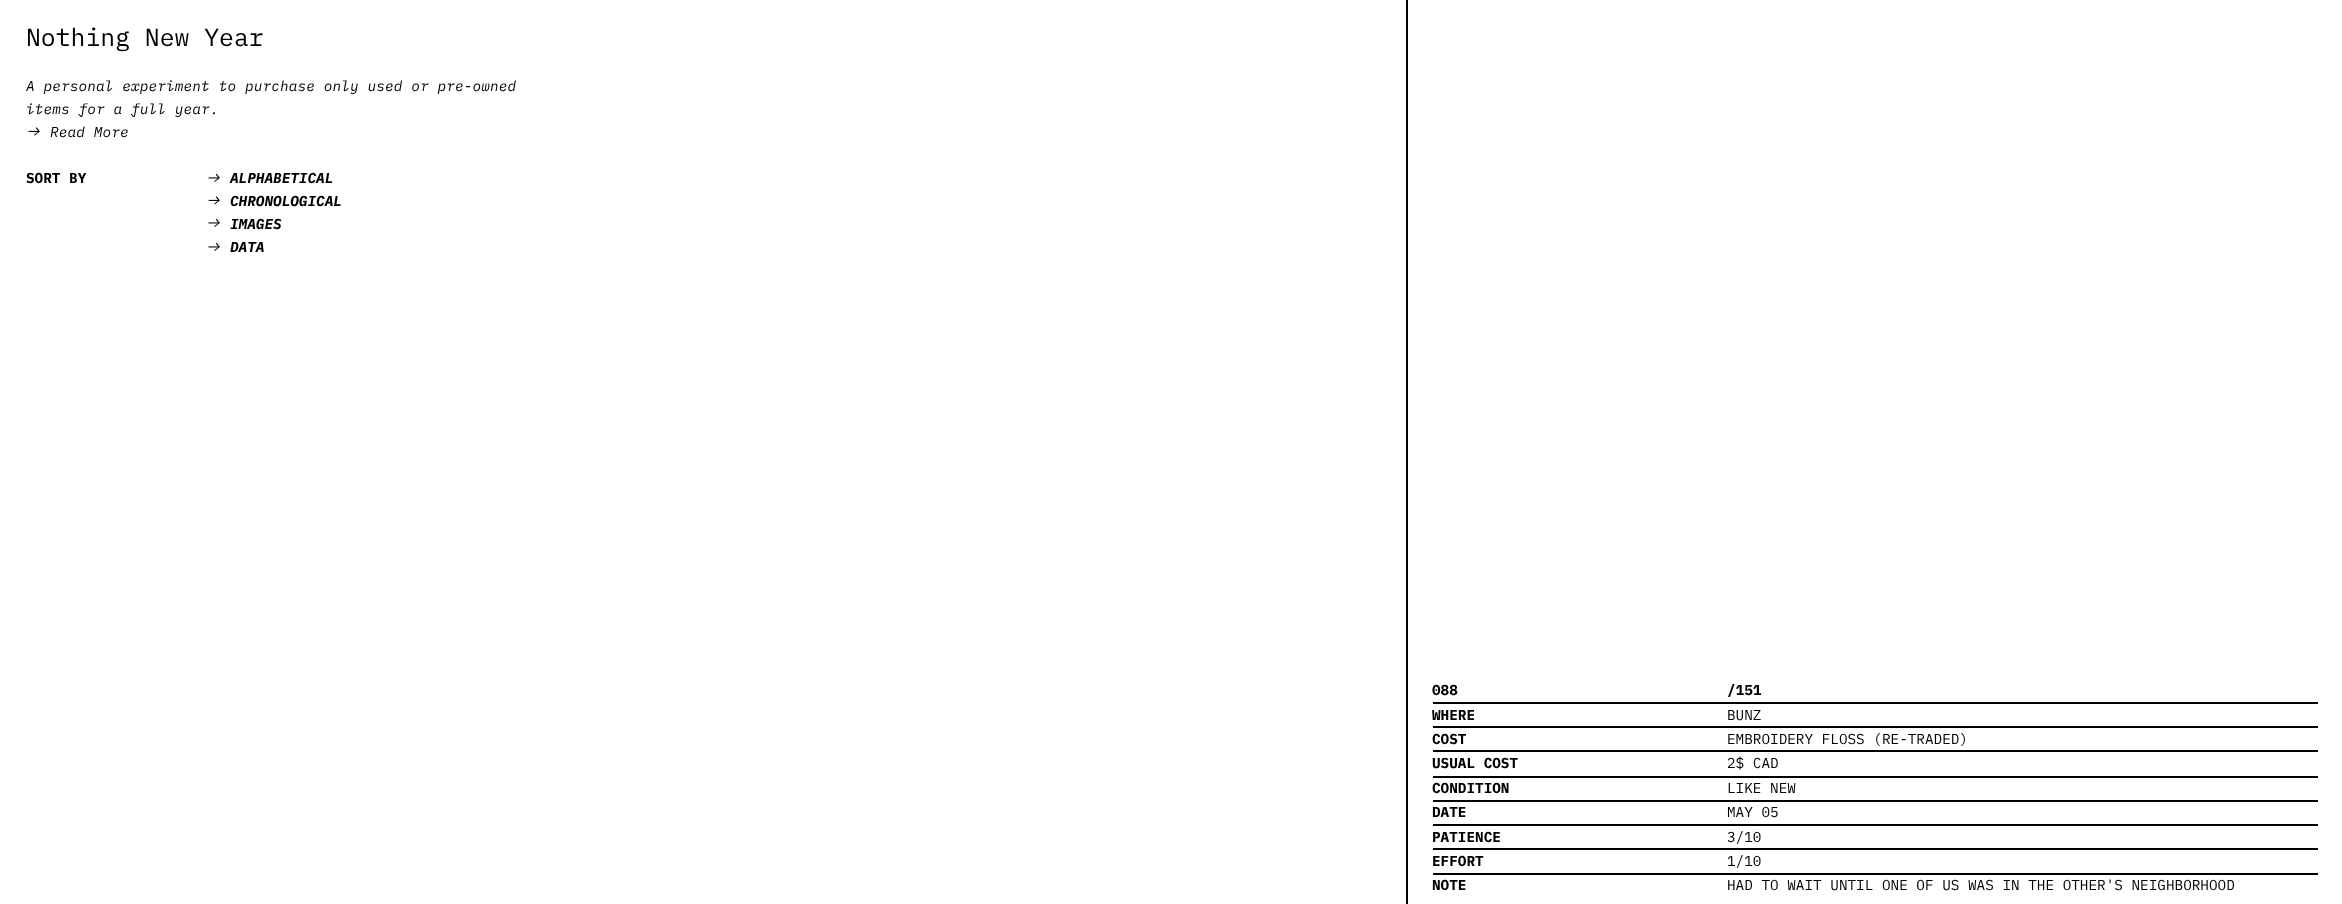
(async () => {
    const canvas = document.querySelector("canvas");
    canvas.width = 2342;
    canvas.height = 904;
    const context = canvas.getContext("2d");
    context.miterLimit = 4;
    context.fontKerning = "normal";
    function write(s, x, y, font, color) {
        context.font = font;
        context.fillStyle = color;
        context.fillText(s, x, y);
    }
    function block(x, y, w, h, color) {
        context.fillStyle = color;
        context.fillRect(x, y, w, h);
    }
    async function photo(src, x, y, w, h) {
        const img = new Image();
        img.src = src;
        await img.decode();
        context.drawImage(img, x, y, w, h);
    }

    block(0, 0, 2342, 904, "rgb(255, 255, 255)");
    write("Nothing New Year", 26, 46, "24.75px IBM Plex Mono", "rgb(0, 0, 0)");
    context.letterSpacing = "0.15px";
    write("A personal experiment to purchase only used or pre-owned", 26, 91, "italic 14.35px IBM Plex Mono", "rgb(0, 0, 0)");
    write("items for a full year.", 26, 114, "italic 14.35px IBM Plex Mono", "rgb(0, 0, 0)");
    await photo("media/1.png", 28, 127, 12, 9);
    write("Read More", 50, 137, "italic 14.35px IBM Plex Mono", "rgb(0, 0, 0)");
    context.letterSpacing = "0px";
    write("SORT BY", 26, 183, "bold 14.35px IBM Plex Mono", "rgb(0, 0, 0)");
    await photo("media/2.png", 208, 173, 12, 9);
    write("ALPHABETICAL", 230, 183, "italic bold 14.35px IBM Plex Mono", "rgb(0, 0, 0)");
    await photo("media/1.png", 208, 196, 12, 9);
    write("CHRONOLOGICAL", 230, 206, "italic bold 14.35px IBM Plex Mono", "rgb(0, 0, 0)");
    await photo("media/2.png", 208, 218, 12, 9);
    write("IMAGES", 230, 229, "italic bold 14.35px IBM Plex Mono", "rgb(0, 0, 0)");
    await photo("media/2.png", 208, 242, 12, 9);
    write("DATA", 230, 252, "italic bold 14.35px IBM Plex Mono", "rgb(0, 0, 0)");
    block(1406, 0, 2, 904, "rgb(0, 0, 0)");
    write("088", 1432, 695, "bold 14.35px IBM Plex Mono", "rgb(0, 0, 0)");
    write("/151", 1727, 695, "bold 14.35px IBM Plex Mono", "rgb(0, 0, 0)");
    block(1433, 702, 885, 2, "rgb(0, 0, 0)");
    write("WHERE", 1432, 720, "bold 14.35px IBM Plex Mono", "rgb(0, 0, 0)");
    write("BUNZ", 1727, 720, "14.35px IBM Plex Mono", "rgb(0, 0, 0)");
    block(1433, 726, 885, 2, "rgb(0, 0, 0)");
    write("COST", 1432, 744, "bold 14.35px IBM Plex Mono", "rgb(0, 0, 0)");
    write("EMBROIDERY FLOSS (RE-TRADED)", 1727, 744, "14.35px IBM Plex Mono", "rgb(0, 0, 0)");
    block(1433, 750, 885, 2, "rgb(0, 0, 0)");
    write("USUAL COST", 1432, 768, "bold 14.35px IBM Plex Mono", "rgb(0, 0, 0)");
    write("2$ CAD", 1727, 768, "14.35px IBM Plex Mono", "rgb(0, 0, 0)");
    block(1433, 776, 885, 2, "rgb(0, 0, 0)");
    write("CONDITION", 1432, 793, "bold 14.35px IBM Plex Mono", "rgb(0, 0, 0)");
    write("LIKE NEW", 1727, 793, "14.35px IBM Plex Mono", "rgb(0, 0, 0)");
    block(1433, 800, 885, 2, "rgb(0, 0, 0)");
    write("DATE", 1432, 817, "bold 14.35px IBM Plex Mono", "rgb(0, 0, 0)");
    write("MAY 05", 1727, 817, "14.35px IBM Plex Mono", "rgb(0, 0, 0)");
    block(1433, 824, 885, 2, "rgb(0, 0, 0)");
    write("PATIENCE", 1432, 842, "bold 14.35px IBM Plex Mono", "rgb(0, 0, 0)");
    write("3/10", 1727, 842, "14.35px IBM Plex Mono", "rgb(0, 0, 0)");
    block(1433, 848, 885, 2, "rgb(0, 0, 0)");
    write("EFFORT", 1432, 866, "bold 14.35px IBM Plex Mono", "rgb(0, 0, 0)");
    write("1/10", 1727, 866, "14.35px IBM Plex Mono", "rgb(0, 0, 0)");
    block(1433, 873, 885, 2, "rgb(0, 0, 0)");
    write("NOTE", 1432, 890, "bold 14.35px IBM Plex Mono", "rgb(0, 0, 0)");
    write("HAD TO WAIT UNTIL ONE OF US WAS IN THE OTHER'S NEIGHBORHOOD", 1727, 890, "14.35px IBM Plex Mono", "rgb(0, 0, 0)");
})();
